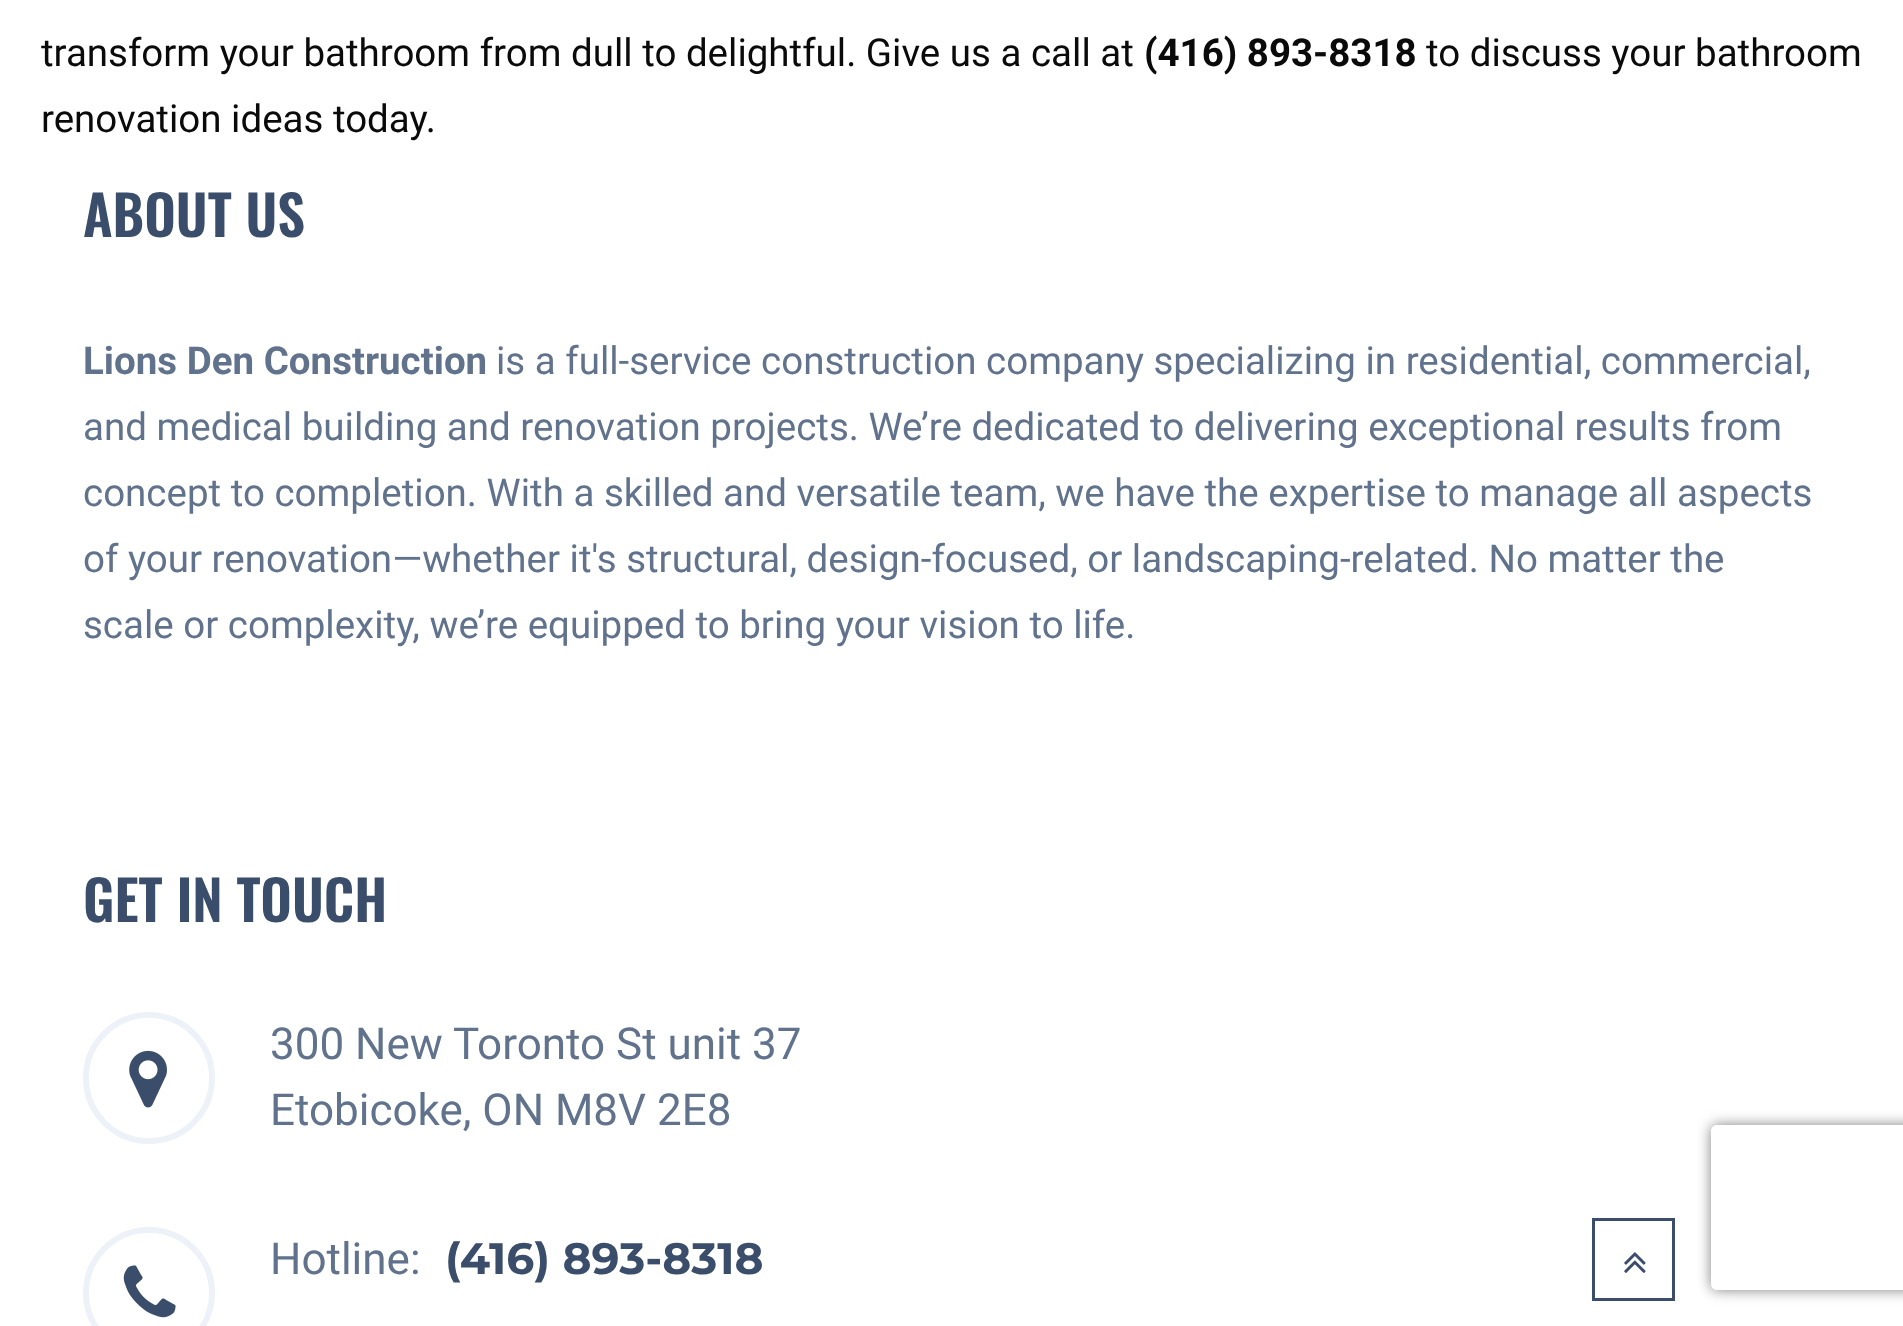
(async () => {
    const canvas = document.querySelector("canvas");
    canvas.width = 1903;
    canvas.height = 1326;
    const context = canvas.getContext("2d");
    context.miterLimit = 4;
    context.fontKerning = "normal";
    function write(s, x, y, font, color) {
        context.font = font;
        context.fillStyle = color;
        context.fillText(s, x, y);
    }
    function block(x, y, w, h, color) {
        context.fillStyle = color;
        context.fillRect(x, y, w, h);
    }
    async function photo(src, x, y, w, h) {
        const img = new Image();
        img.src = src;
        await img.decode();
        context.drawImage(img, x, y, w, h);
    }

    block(0, 0, 1903, 1326, "rgb(255, 255, 255)");
    write("transform your bathroom from dull to delightful. Give us a call at", 41, 66, "38.5px Roboto", "rgb(10, 10, 10)");
    write("(416) 893-8318", 1144, 66, "bold 38.5px Roboto", "rgb(10, 10, 10)");
    write("to discuss your bathroom", 1426, 66, "38.5px Roboto", "rgb(10, 10, 10)");
    write("renovation ideas today.", 41, 132, "38.5px Roboto", "rgb(10, 10, 10)");
    write("ABOUT US", 83, 237, "600 55px Oswald", "rgb(58, 77, 106)");
    write("Lions Den Construction", 83, 374, "bold 38.5px Roboto", "rgb(97, 114, 141)");
    write("is a full-service construction company specializing in residential, commercial,", 496, 374, "38.5px Roboto", "rgb(97, 114, 141)");
    write("and medical building and renovation projects. We’re dedicated to delivering exceptional results from", 83, 440, "38.5px Roboto", "rgb(97, 114, 141)");
    write("concept to completion. With a skilled and versatile team, we have the expertise to manage all aspects", 83, 506, "38.5px Roboto", "rgb(97, 114, 141)");
    write("of your renovation—whether it's structural, design-focused, or landscaping-related. No matter the", 83, 572, "38.5px Roboto", "rgb(97, 114, 141)");
    write("scale or complexity, we’re equipped to bring your vision to life.", 83, 638, "38.5px Roboto", "rgb(97, 114, 141)");
    write("GET IN TOUCH", 83, 922, "600 55px Oswald", "rgb(58, 77, 106)");
    context.beginPath();
    context.arc(149, 1078, 63, 0, Math.PI * 2);
    context.strokeStyle = "rgb(237, 242, 249)";
    context.lineWidth = 6;
    context.stroke();
    await photo("media/1.png", 129, 1050, 38, 58);
    write("300 New Toronto St unit 37", 270, 1059, "44px Roboto", "rgb(97, 114, 141)");
    write("Etobicoke, ON M8V 2E8", 270, 1125, "44px Roboto", "rgb(97, 114, 141)");
    context.beginPath();
    context.arc(149, 1293, 63, 0, Math.PI * 2);
    context.stroke();
    await photo("media/2.png", 123, 1265, 53, 53);
    write("Hotline:", 270, 1274, "44px Roboto", "rgb(97, 114, 141)");
    write("(416) 893-8318", 445, 1274, "bold 44px Montserrat", "rgb(58, 77, 106)");
    context.strokeStyle = "rgb(58, 77, 106)";
    context.lineWidth = 3;
    context.strokeRect(1593.5, 1219.5, 80, 80);
    await photo("media/3.png", 1624, 1252, 22, 21);
    context.save();
    context.beginPath();
    context.moveTo(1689, 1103);
    context.lineTo(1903, 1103);
    context.lineTo(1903, 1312);
    context.lineTo(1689, 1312);
    context.closePath();
    context.moveTo(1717, 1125);
    context.lineTo(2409, 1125);
    context.bezierCurveTo(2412.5, 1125, 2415, 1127.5, 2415, 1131);
    context.lineTo(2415, 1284);
    context.bezierCurveTo(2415, 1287.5, 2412.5, 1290, 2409, 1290);
    context.lineTo(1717, 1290);
    context.bezierCurveTo(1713.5, 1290, 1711, 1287.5, 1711, 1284);
    context.lineTo(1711, 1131);
    context.bezierCurveTo(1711, 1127.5, 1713.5, 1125, 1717, 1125);
    context.closePath();
    context.clip("evenodd");
    context.fillStyle = "rgb(128, 128, 128)";
    context.filter = "blur(7px)";
    context.beginPath();
    context.roundRect(1711, 1125, 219, 165, 6);
    context.fill();
    context.filter = "none";
    context.restore();
})();
